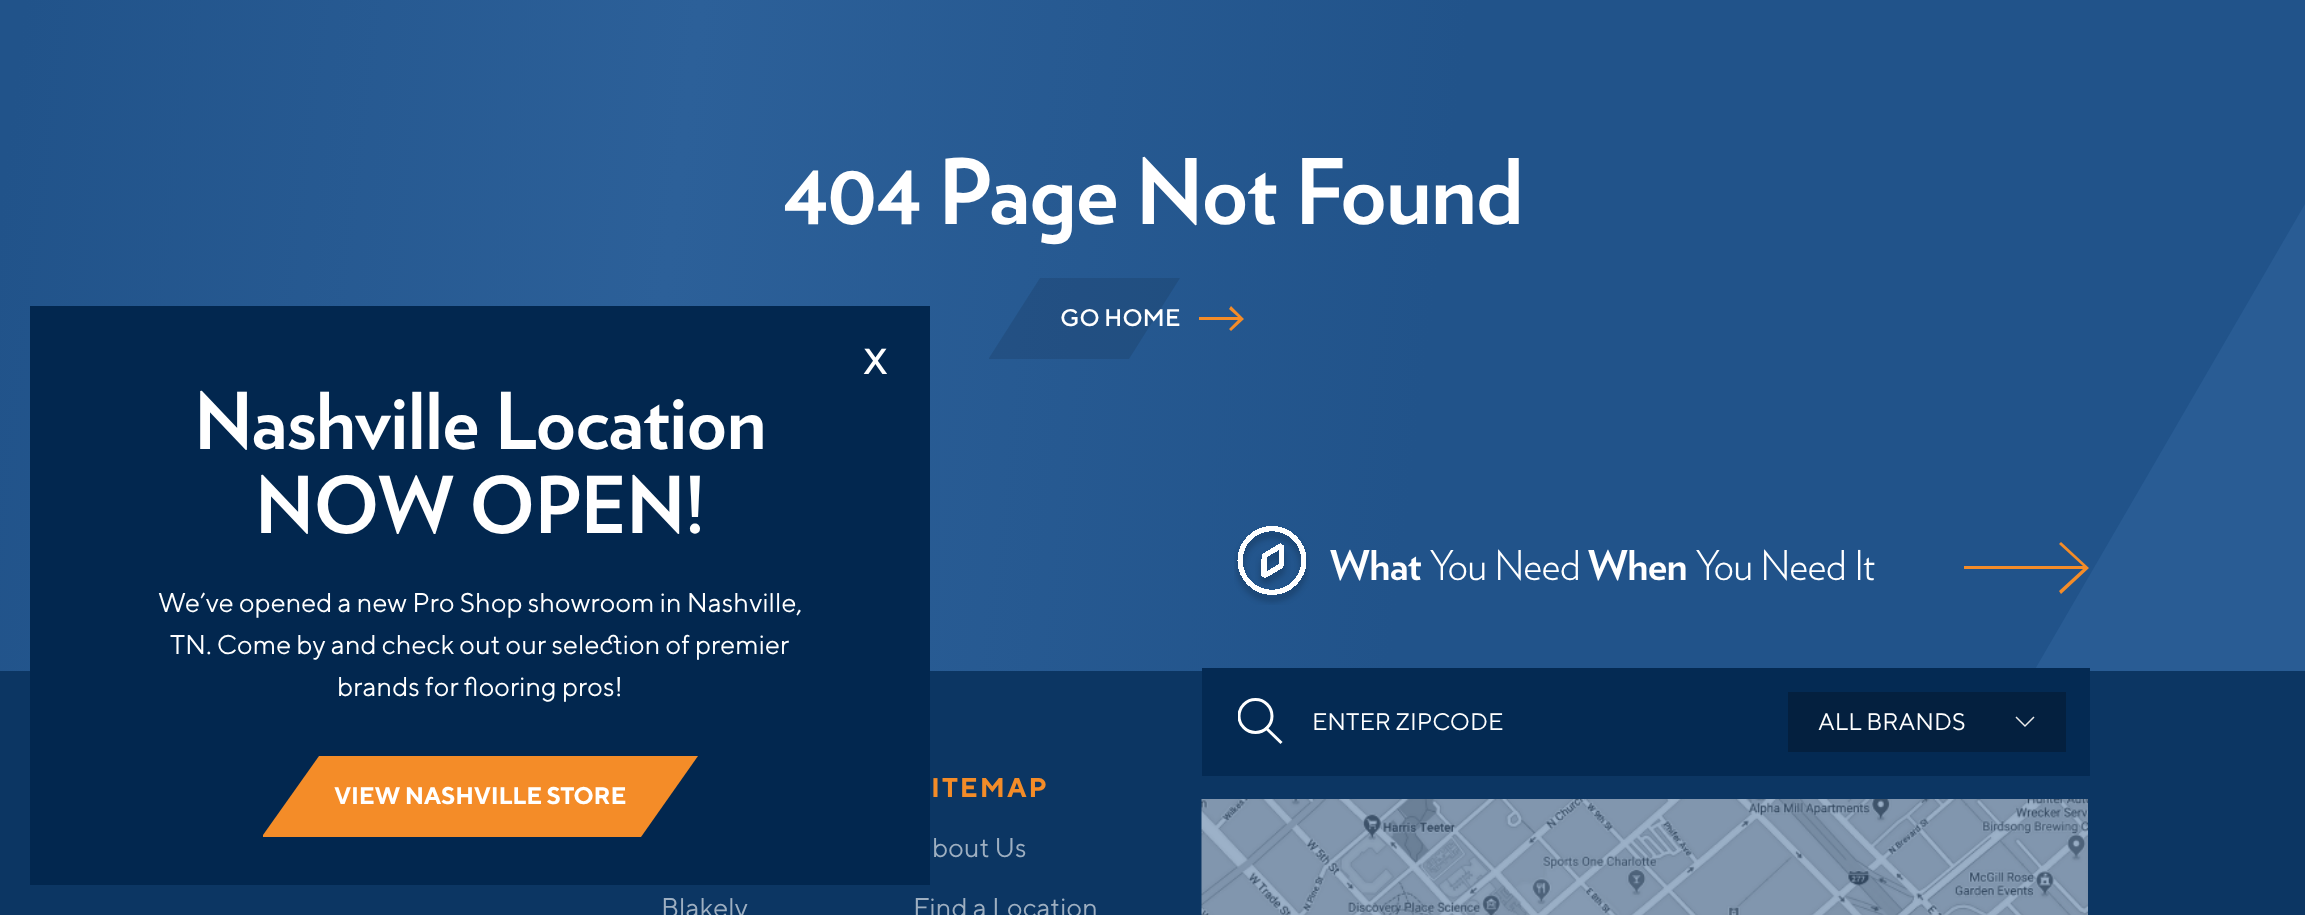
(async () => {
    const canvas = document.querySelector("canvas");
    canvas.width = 2305;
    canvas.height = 915;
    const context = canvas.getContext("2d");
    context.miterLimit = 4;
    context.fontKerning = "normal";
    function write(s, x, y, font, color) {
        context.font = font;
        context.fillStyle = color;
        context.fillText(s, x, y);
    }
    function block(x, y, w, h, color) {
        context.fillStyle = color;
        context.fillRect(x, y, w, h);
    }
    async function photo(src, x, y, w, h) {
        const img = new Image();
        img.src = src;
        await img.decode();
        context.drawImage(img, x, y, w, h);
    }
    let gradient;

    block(0, 0, 2305, 915, "rgb(12, 54, 99)");
    gradient = context.createLinearGradient(-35, 93, 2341, 384);
    gradient.addColorStop(0.02, "rgb(33, 83, 138)");
    gradient.addColorStop(0.3, "rgb(44, 96, 153)");
    gradient.addColorStop(0.62, "rgb(33, 83, 138)");
    context.fillStyle = gradient;
    context.fillRect(0, 0, 2305, 671);
    block(30, 306, 900, 579, "rgb(2, 39, 79)");
    write("X", 863, 374, "500 36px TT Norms", "rgb(255, 255, 255)");
    context.letterSpacing = "-0.75px";
    write("Nashville Location", 194, 449, "bold 78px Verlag", "rgb(255, 255, 255)");
    write("NOW OPEN!", 255, 533, "bold 78px Verlag", "rgb(255, 255, 255)");
    context.letterSpacing = "0px";
    write("We’ve opened a new Pro Shop showroom in Nashville,", 158, 612, "27px TT Norms", "rgb(255, 255, 255)");
    write("TN. Come by and check out our selection of premier", 170, 654, "27px TT Norms", "rgb(255, 255, 255)");
    write("brands for flooring pros!", 337, 696, "27px TT Norms", "rgb(255, 255, 255)");
    context.fillStyle = "rgb(244, 140, 40)";
    context.beginPath();
    context.moveTo(319, 756);
    context.lineTo(263, 835);
    context.lineTo(263, 837);
    context.lineTo(641, 837);
    context.lineTo(698, 756);
    context.closePath();
    context.fill();
    context.letterSpacing = "-0.25px";
    write("VIEW NASHVILLE STORE", 334, 804, "bold 24px TT Norms", "rgb(255, 255, 255)");
    context.letterSpacing = "-1.1px";
    write("404 Page Not Found", 783, 224, "bold 90px Verlag", "rgb(255, 255, 255)");
    context.fillStyle = "rgba(0, 0, 0, 0.1)";
    context.beginPath();
    context.moveTo(1040, 278);
    context.lineTo(1180, 278);
    context.lineTo(1129, 359);
    context.lineTo(989, 359);
    context.lineTo(989, 358);
    context.closePath();
    context.fill();
    context.save();
    context.beginPath();
    context.rect(1199, 306, 46, 26);
    context.clip();
    context.fillStyle = "rgb(244, 140, 40)";
    context.beginPath();
    context.moveTo(1231, 306);
    context.lineTo(1244, 319);
    context.lineTo(1231, 331);
    context.lineTo(1229, 329);
    context.lineTo(1238, 320);
    context.lineTo(1198, 320);
    context.lineTo(1198, 317);
    context.lineTo(1238, 317);
    context.lineTo(1229, 309);
    context.closePath();
    context.fill("evenodd");
    context.restore();
    context.letterSpacing = "-0.25px";
    write("GO HOME", 1060, 326, "500 24px TT Norms", "rgb(255, 255, 255)");
    context.fillStyle = "rgb(41, 92, 148)";
    context.beginPath();
    context.moveTo(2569, -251);
    context.lineTo(2034, 671);
    context.lineTo(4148, 671);
    context.lineTo(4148, -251);
    context.closePath();
    context.fill();
    await photo("media/1.png", 1234, 526, 76, 79);
    context.letterSpacing = "-0.6px";
    write("What", 1330, 580, "bold 41px Verlag", "rgb(255, 255, 255)");
    write("You Need", 1429, 580, "300 41px Verlag", "rgb(255, 255, 255)");
    write("When", 1588, 580, "bold 41px Verlag", "rgb(255, 255, 255)");
    write("You Need It", 1695, 580, "300 41px Verlag", "rgb(255, 255, 255)");
    context.fillStyle = "rgb(244, 140, 40)";
    context.beginPath();
    context.moveTo(2061, 542);
    context.lineTo(2089, 568);
    context.lineTo(2061, 594);
    context.lineTo(2059, 591);
    context.lineTo(2083, 569);
    context.lineTo(1964, 569);
    context.lineTo(1964, 566);
    context.lineTo(2083, 566);
    context.lineTo(2059, 544);
    context.closePath();
    context.fill("evenodd");
    block(1202, 668, 888, 108, "rgb(4, 42, 83)");
    context.save();
    context.beginPath();
    context.rect(1238, 692, 45, 60);
    context.clip();
    context.beginPath();
    context.arc(1255.5, 716, 16.5, 0, Math.PI * 2);
    context.strokeStyle = "rgb(255, 255, 255)";
    context.lineWidth = 3;
    context.stroke();
    context.restore();
    context.beginPath();
    context.moveTo(1265.5, 727.5);
    context.lineTo(1281.5, 743);
    context.strokeStyle = "rgb(255, 255, 255)";
    context.lineWidth = 3;
    context.stroke();
    context.letterSpacing = "0px";
    write("ENTER ZIPCODE", 1312, 730, "24px TT Norms", "rgb(255, 255, 255)");
    block(1788, 692, 278, 60, "rgb(4, 32, 63)");
    write("ALL BRANDS", 1818, 730, "24px TT Norms", "rgb(255, 255, 255)");
    context.beginPath();
    context.moveTo(2016, 717);
    context.lineTo(2025, 726);
    context.lineTo(2034, 717);
    context.strokeStyle = "rgb(235, 235, 235)";
    context.lineWidth = 1.5;
    context.stroke();
    await photo("media/2.png", 1201, 799, 887, 116);
    write("Blakely", 661, 917, "27px TT Norms", "rgb(158, 175, 193)");
    context.letterSpacing = "2px";
    write("ITEMAP", 931, 797, "bold 27px TT Norms", "rgb(244, 140, 40)");
    context.letterSpacing = "0px";
    write("bout Us", 932, 857, "27px TT Norms", "rgb(158, 175, 193)");
    write("Find a Location", 913, 917, "27px TT Norms", "rgb(158, 175, 193)");
})();
